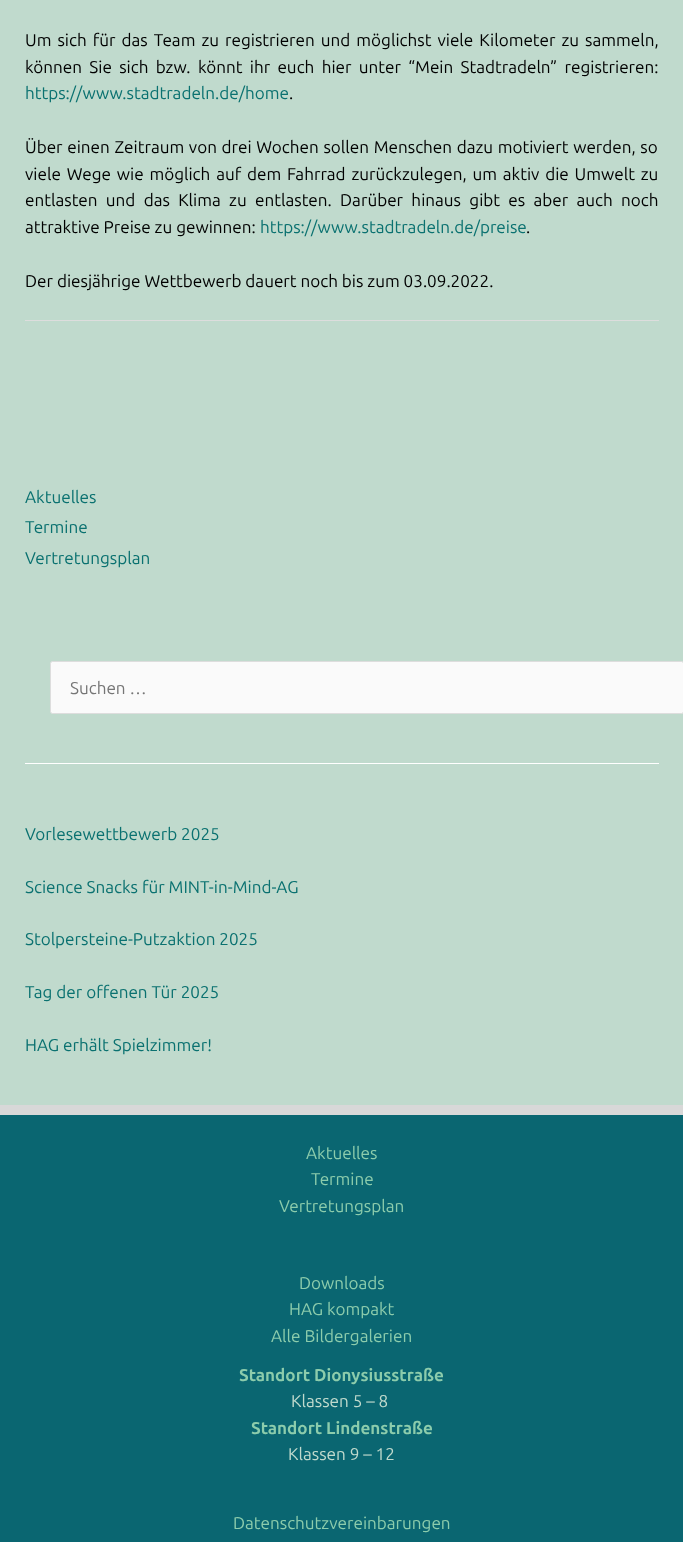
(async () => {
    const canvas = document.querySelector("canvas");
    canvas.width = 683;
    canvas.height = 1542;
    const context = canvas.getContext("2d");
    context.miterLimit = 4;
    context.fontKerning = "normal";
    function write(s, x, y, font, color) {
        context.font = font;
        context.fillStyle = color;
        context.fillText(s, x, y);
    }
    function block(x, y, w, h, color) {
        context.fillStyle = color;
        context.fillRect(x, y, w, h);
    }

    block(0, 0, 683, 1542, "rgb(192, 218, 205)");
    context.wordSpacing = "2.1px";
    write("Um sich für das Team zu registrieren und möglichst viele Kilometer zu sammeln,", 25, 46, "17.1px Ubuntu", "rgb(0, 0, 0)");
    context.wordSpacing = "3.4px";
    write("können Sie sich bzw. könnt ihr euch hier unter “Mein Stadtradeln” registrieren:", 25, 73, "17.1px Ubuntu", "rgb(0, 0, 0)");
    context.wordSpacing = "0px";
    write("https://www.stadtradeln.de/home", 25, 99, "17.1px Ubuntu", "rgb(10, 113, 112)");
    write(".", 289, 99, "17.1px Ubuntu", "rgb(0, 0, 0)");
    context.wordSpacing = "0.75px";
    write("Über einen Zeitraum von drei Wochen sollen Menschen dazu motiviert werden, so", 25, 153, "17.1px Ubuntu", "rgb(0, 0, 0)");
    context.wordSpacing = "1.9px";
    write("viele Wege wie möglich auf dem Fahrrad zurückzulegen, um aktiv die Umwelt zu", 25, 180, "17.1px Ubuntu", "rgb(0, 0, 0)");
    context.wordSpacing = "4.4px";
    write("entlasten und das Klima zu entlasten. Darüber hinaus gibt es aber auch noch", 25, 206, "17.1px Ubuntu", "rgb(0, 0, 0)");
    context.wordSpacing = "0px";
    write("attraktive Preise zu gewinnen:", 25, 233, "17.1px Ubuntu", "rgb(0, 0, 0)");
    write("https://www.stadtradeln.de/preise", 260, 233, "17.1px Ubuntu", "rgb(10, 113, 112)");
    write(".", 526, 233, "17.1px Ubuntu", "rgb(0, 0, 0)");
    write("Der diesjährige Wettbewerb dauert noch bis zum 03.09.2022.", 25, 287, "17.1px Ubuntu", "rgb(0, 0, 0)");
    block(25, 320, 634, 1, "rgb(221, 221, 221)");
    write("Aktuelles", 25, 503, "17.1px Ubuntu", "rgb(10, 113, 112)");
    write("Termine", 25, 533, "17.1px Ubuntu", "rgb(10, 113, 112)");
    write("Vertretungsplan", 25, 564, "17.1px Ubuntu", "rgb(10, 113, 112)");
    context.fillStyle = "rgb(250, 250, 250)";
    context.beginPath();
    context.roundRect(50.5, 661.5, 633, 52, 2);
    context.fill();
    context.strokeStyle = "rgb(221, 221, 221)";
    context.stroke();
    write("Suchen …", 70, 694, "17.1px Ubuntu", "rgb(117, 117, 117)");
    block(25, 763, 634, 1, "rgb(255, 255, 255)");
    write("Vorlesewettbewerb 2025", 25, 840, "17.1px Ubuntu", "rgb(10, 113, 112)");
    write("Science Snacks für MINT-in-Mind-AG", 25, 893, "17.1px Ubuntu", "rgb(10, 113, 112)");
    write("Stolpersteine-Putzaktion 2025", 25, 945, "17.1px Ubuntu", "rgb(10, 113, 112)");
    write("Tag der offenen Tür 2025", 25, 998, "17.1px Ubuntu", "rgb(10, 113, 112)");
    write("HAG erhält Spielzimmer!", 25, 1051, "17.1px Ubuntu", "rgb(10, 113, 112)");
    block(0, 1115, 683, 427, "rgb(10, 102, 113)");
    block(0, 1105, 683, 10, "rgb(216, 216, 216)");
    write("Aktuelles", 306, 1159, "17.1px Ubuntu", "rgb(140, 204, 172)");
    write("Termine", 311, 1185, "17.1px Ubuntu", "rgb(140, 204, 172)");
    write("Vertretungsplan", 279, 1212, "17.1px Ubuntu", "rgb(140, 204, 172)");
    write("Downloads", 299, 1289, "17.1px Ubuntu", "rgb(140, 204, 172)");
    write("HAG kompakt", 289, 1315, "17.1px Ubuntu", "rgb(140, 204, 172)");
    write("Alle Bildergalerien", 271, 1342, "17.1px Ubuntu", "rgb(140, 204, 172)");
    write("Standort Dionysiusstraße", 239, 1381, "bold 17.1px Ubuntu", "rgb(140, 204, 172)");
    write("Klassen 5 – 8", 291, 1407, "17.1px Ubuntu", "rgb(192, 218, 205)");
    write("Standort Lindenstraße", 251, 1434, "bold 17.1px Ubuntu", "rgb(140, 204, 172)");
    write("Klassen 9 – 12", 288, 1460, "17.1px Ubuntu", "rgb(192, 218, 205)");
    write("Datenschutzvereinbarungen", 233, 1529, "17.1px Ubuntu", "rgb(140, 204, 172)");
})();
